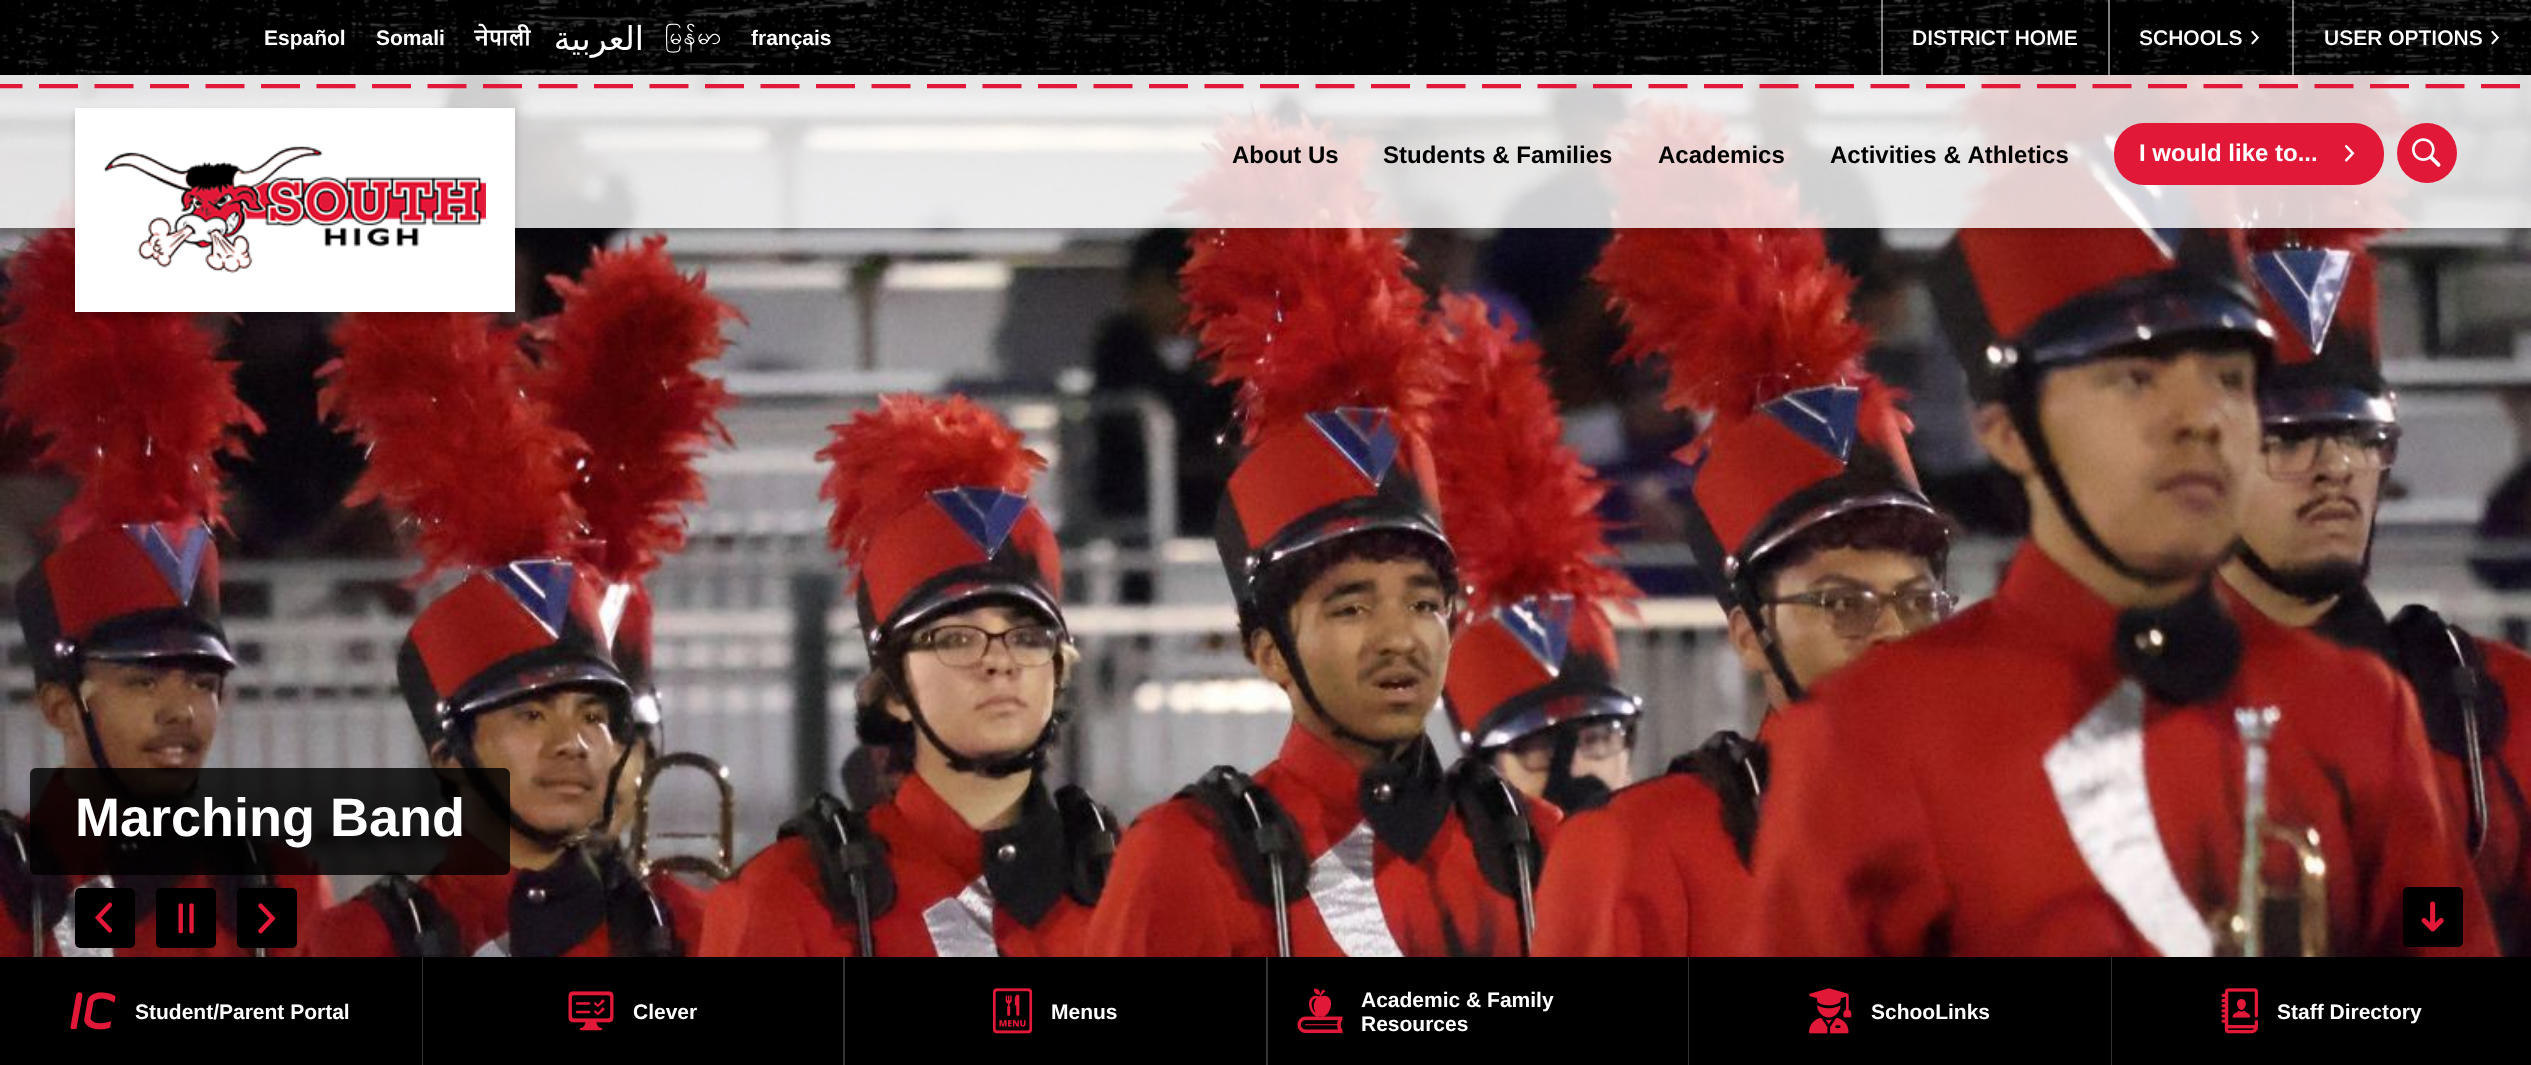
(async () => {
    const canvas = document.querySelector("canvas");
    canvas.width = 2531;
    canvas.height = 1065;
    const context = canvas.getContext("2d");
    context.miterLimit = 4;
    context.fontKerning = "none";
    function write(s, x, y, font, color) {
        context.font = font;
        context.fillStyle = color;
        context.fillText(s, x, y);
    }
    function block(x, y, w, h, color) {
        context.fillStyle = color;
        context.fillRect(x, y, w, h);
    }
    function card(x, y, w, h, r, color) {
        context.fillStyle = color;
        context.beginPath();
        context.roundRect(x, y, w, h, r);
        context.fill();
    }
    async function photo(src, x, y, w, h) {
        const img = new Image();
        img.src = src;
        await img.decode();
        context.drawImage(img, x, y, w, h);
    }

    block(0, 0, 2531, 1065, "rgb(255, 255, 255)");
    await photo("media/1.png", 0, 0, 2531, 75);
    write("Español", 264, 45, "bold 21px Arimo", "rgb(255, 255, 255)");
    write("Somali", 376, 45, "bold 21px Arimo", "rgb(255, 255, 255)");
    await photo("media/2.png", 474, 23, 57, 23);
    context.direction = "rtl";
    write("العربية", 644, 50, "33px DejaVu Sans", "rgb(255, 255, 255)");
    await photo("media/3.png", 666, 23, 55, 30);
    context.direction = "ltr";
    write("français", 751, 45, "bold 21px Arimo", "rgb(255, 255, 255)");
    block(1881, 0, 2, 75, "rgba(255, 255, 255, 0.5)");
    write("DISTRICT HOME", 1912, 45, "600 21px Arimo", "rgb(255, 255, 255)");
    block(2108, 0, 2, 75, "rgba(255, 255, 255, 0.5)");
    write("SCHOOLS", 2139, 45, "600 21px Arimo", "rgb(255, 255, 255)");
    await photo("media/4.png", 2251, 30, 8, 15);
    block(2292, 0, 2, 75, "rgba(255, 255, 255, 0.5)");
    write("USER OPTIONS", 2324, 45, "600 21px Arimo", "rgb(255, 255, 255)");
    await photo("media/5.png", 2491, 30, 8, 15);
    await photo("media/10.png", 0, 75, 2531, 882);
    context.save();
    context.beginPath();
    context.rect(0, 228, 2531, 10);
    context.clip();
    context.fillStyle = "rgba(0, 0, 0, 0.16)";
    context.filter = "blur(4.5px)";
    context.beginPath();
    context.rect(0, 80, 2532, 153);
    context.fill();
    context.filter = "none";
    context.restore();
    block(0, 75, 2531, 153, "rgba(255, 255, 255, 0.8)");
    await photo("media/6.png", 0, 84, 2520, 5);
    context.fillStyle = "rgba(0, 0, 0, 0.16)";
    context.filter = "blur(4.5px)";
    context.beginPath();
    context.rect(75, 113, 440, 204);
    context.fill();
    context.filter = "none";
    block(75, 108, 440, 204, "rgb(255, 255, 255)");
    await photo("media/7.png", 103, 145, 383, 129);
    write("About Us", 1232, 163, "bold 24px Arimo", "rgb(0, 0, 0)");
    write("Students & Families", 1383, 163, "bold 24px Arimo", "rgb(0, 0, 0)");
    write("Academics", 1658, 163, "bold 24px Arimo", "rgb(0, 0, 0)");
    write("Activities & Athletics", 1830, 163, "bold 24px Arimo", "rgb(0, 0, 0)");
    card(2114, 123, 270, 62, 30, "rgb(225, 24, 55)");
    write("I would like to...", 2139, 161, "bold 24px Arimo", "rgb(255, 255, 255)");
    await photo("media/8.png", 2345, 145, 10, 17);
    context.fillStyle = "rgb(225, 24, 55)";
    context.beginPath();
    context.arc(2427, 153, 30, 0, Math.PI * 2);
    context.fill();
    await photo("media/9.png", 2412, 138, 29, 29);
    card(30, 768, 480, 107, 6, "rgba(0, 0, 0, 0.8)");
    write("Marching Band", 75, 836, "bold 54px Arimo", "rgb(255, 255, 255)");
    card(75, 888, 60, 60, 5, "rgb(0, 0, 0)");
    await photo("media/11.png", 95, 902, 18, 31);
    card(156, 888, 60, 60, 5, "rgb(0, 0, 0)");
    await photo("media/12.png", 178, 903, 16, 31);
    card(237, 888, 60, 60, 5, "rgb(0, 0, 0)");
    await photo("media/13.png", 258, 903, 18, 31);
    card(2403, 887, 60, 60, 5, "rgb(0, 0, 0)");
    await photo("media/14.png", 2421, 901, 23, 31);
    block(0, 957, 1688, 108, "rgb(0, 0, 0)");
    block(422, 957, 1, 108, "rgb(51, 51, 51)");
    await photo("media/15.png", 70, 992, 46, 38);
    write("Student/Parent Portal", 135, 1019, "bold 21px Arimo", "rgb(255, 255, 255)");
    block(843, 957, 2, 108, "rgb(51, 51, 51)");
    await photo("media/16.png", 568, 991, 46, 40);
    write("Clever", 633, 1019, "bold 21px Arimo", "rgb(255, 255, 255)");
    block(1266, 957, 2, 108, "rgb(51, 51, 51)");
    await photo("media/17.png", 993, 988, 40, 46);
    write("Menus", 1051, 1019, "bold 21px Arimo", "rgb(255, 255, 255)");
    block(1688, 957, 1, 108, "rgb(51, 51, 51)");
    await photo("media/18.png", 1297, 988, 46, 46);
    write("Academic & Family", 1361, 1007, "bold 21px Arimo", "rgb(255, 255, 255)");
    write("Resources", 1361, 1031, "bold 21px Arimo", "rgb(255, 255, 255)");
    block(2111, 957, 1, 108, "rgb(51, 51, 51)");
    block(1689, 957, 422, 108, "rgb(0, 0, 0)");
    await photo("media/19.png", 1809, 988, 43, 46);
    write("SchooLinks", 1871, 1019, "bold 21px Arimo", "rgb(255, 255, 255)");
    block(2112, 957, 419, 108, "rgb(0, 0, 0)");
    await photo("media/20.png", 2221, 988, 37, 46);
    write("Staff Directory", 2277, 1019, "bold 21px Arimo", "rgb(255, 255, 255)");
})();
